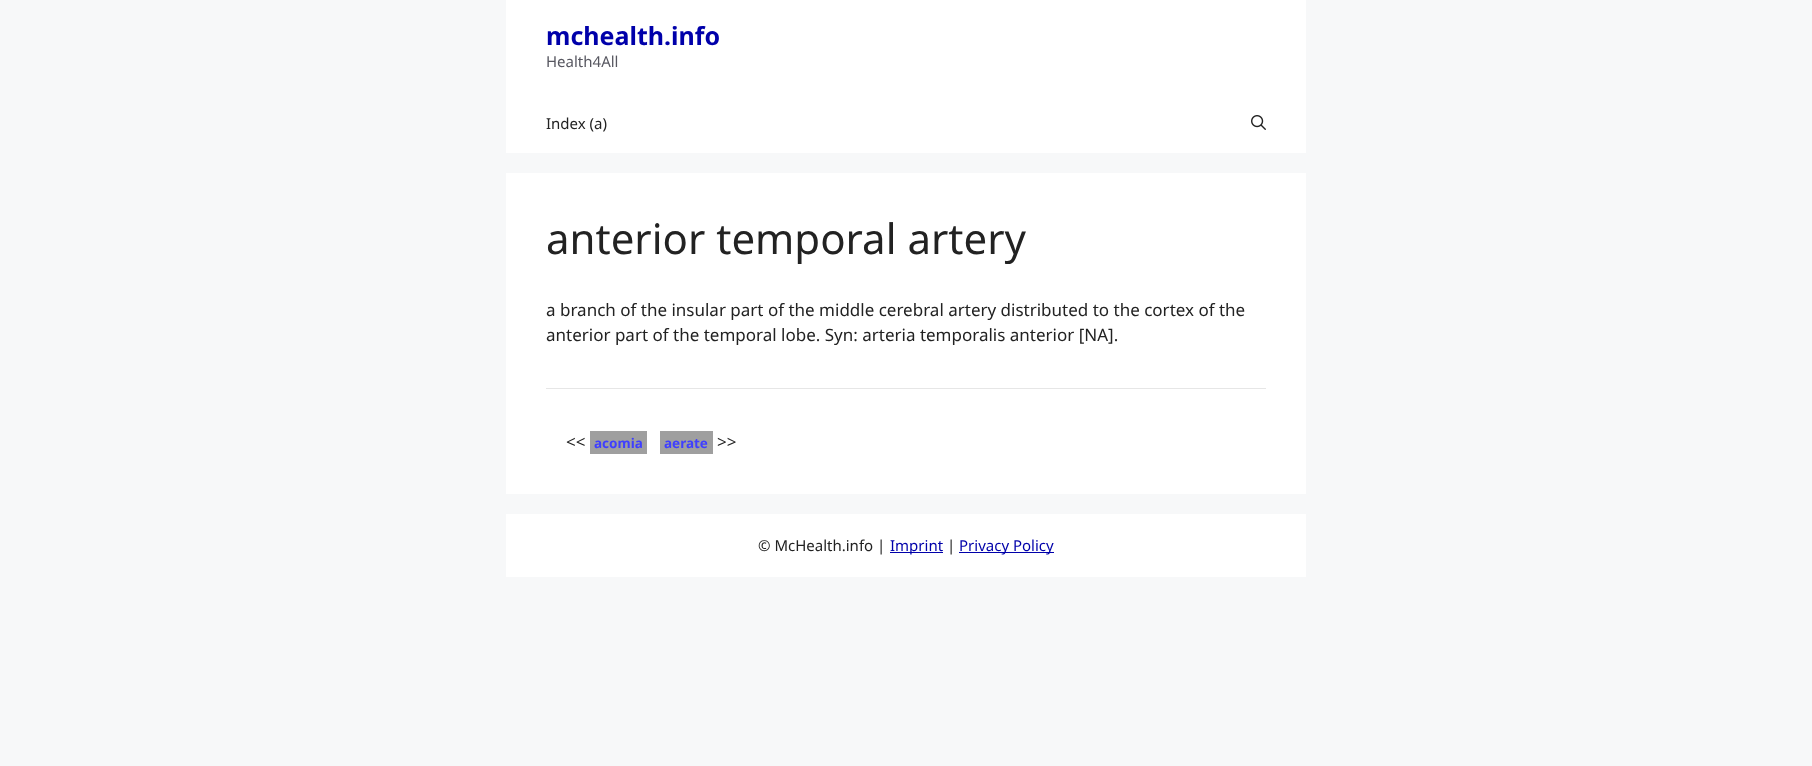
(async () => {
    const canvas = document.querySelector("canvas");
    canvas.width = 1812;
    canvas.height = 766;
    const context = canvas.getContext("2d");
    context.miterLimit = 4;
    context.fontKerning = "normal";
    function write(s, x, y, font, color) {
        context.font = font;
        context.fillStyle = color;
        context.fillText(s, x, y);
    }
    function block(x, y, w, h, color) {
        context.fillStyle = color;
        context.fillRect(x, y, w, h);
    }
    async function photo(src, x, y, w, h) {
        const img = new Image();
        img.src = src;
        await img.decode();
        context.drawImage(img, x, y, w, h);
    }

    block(0, 0, 1812, 766, "rgb(247, 248, 249)");
    block(506, 0, 800, 153, "rgb(255, 255, 255)");
    write("mchealth.info", 546, 45, "bold 25px Noto Sans", "rgb(0, 0, 170)");
    write("Health4All", 546, 67, "15px Noto Sans", "rgb(87, 87, 96)");
    write("Index (a)", 546, 129, "15px Noto Sans", "rgb(34, 34, 34)");
    await photo("media/1.png", 1251, 115, 15, 15);
    block(506, 173, 800, 321, "rgb(255, 255, 255)");
    write("anterior temporal artery", 546, 254, "42px Noto Sans", "rgb(34, 34, 34)");
    write("a branch of the insular part of the middle cerebral artery distributed to the cortex of the", 546, 316, "17px Noto Sans", "rgb(34, 34, 34)");
    write("anterior part of the temporal lobe. Syn: arteria temporalis anterior [NA].", 546, 341, "17px Noto Sans", "rgb(34, 34, 34)");
    block(546, 388, 720, 1, "rgb(230, 230, 230)");
    write("<<", 566, 448, "17px Noto Sans", "rgb(34, 34, 34)");
    block(590, 431, 57, 23, "rgb(159, 159, 159)");
    write("acomia", 594, 448, "bold 13.5px Noto Sans", "rgb(63, 63, 255)");
    block(660, 431, 53, 23, "rgb(159, 159, 159)");
    write("aerate", 664, 448, "bold 13.5px Noto Sans", "rgb(63, 63, 255)");
    write(">>", 717, 448, "17px Noto Sans", "rgb(34, 34, 34)");
    block(506, 514, 800, 63, "rgb(255, 255, 255)");
    write("© McHealth.info |", 758, 551, "15px Noto Sans", "rgb(34, 34, 34)");
    block(890, 552, 53, 1, "rgb(0, 0, 170)");
    write("Imprint", 890, 551, "15px Noto Sans", "rgb(0, 0, 170)");
    write("|", 947, 551, "15px Noto Sans", "rgb(34, 34, 34)");
    block(959, 552, 95, 1, "rgb(0, 0, 170)");
    write("Privacy Policy", 959, 551, "15px Noto Sans", "rgb(0, 0, 170)");
})();
